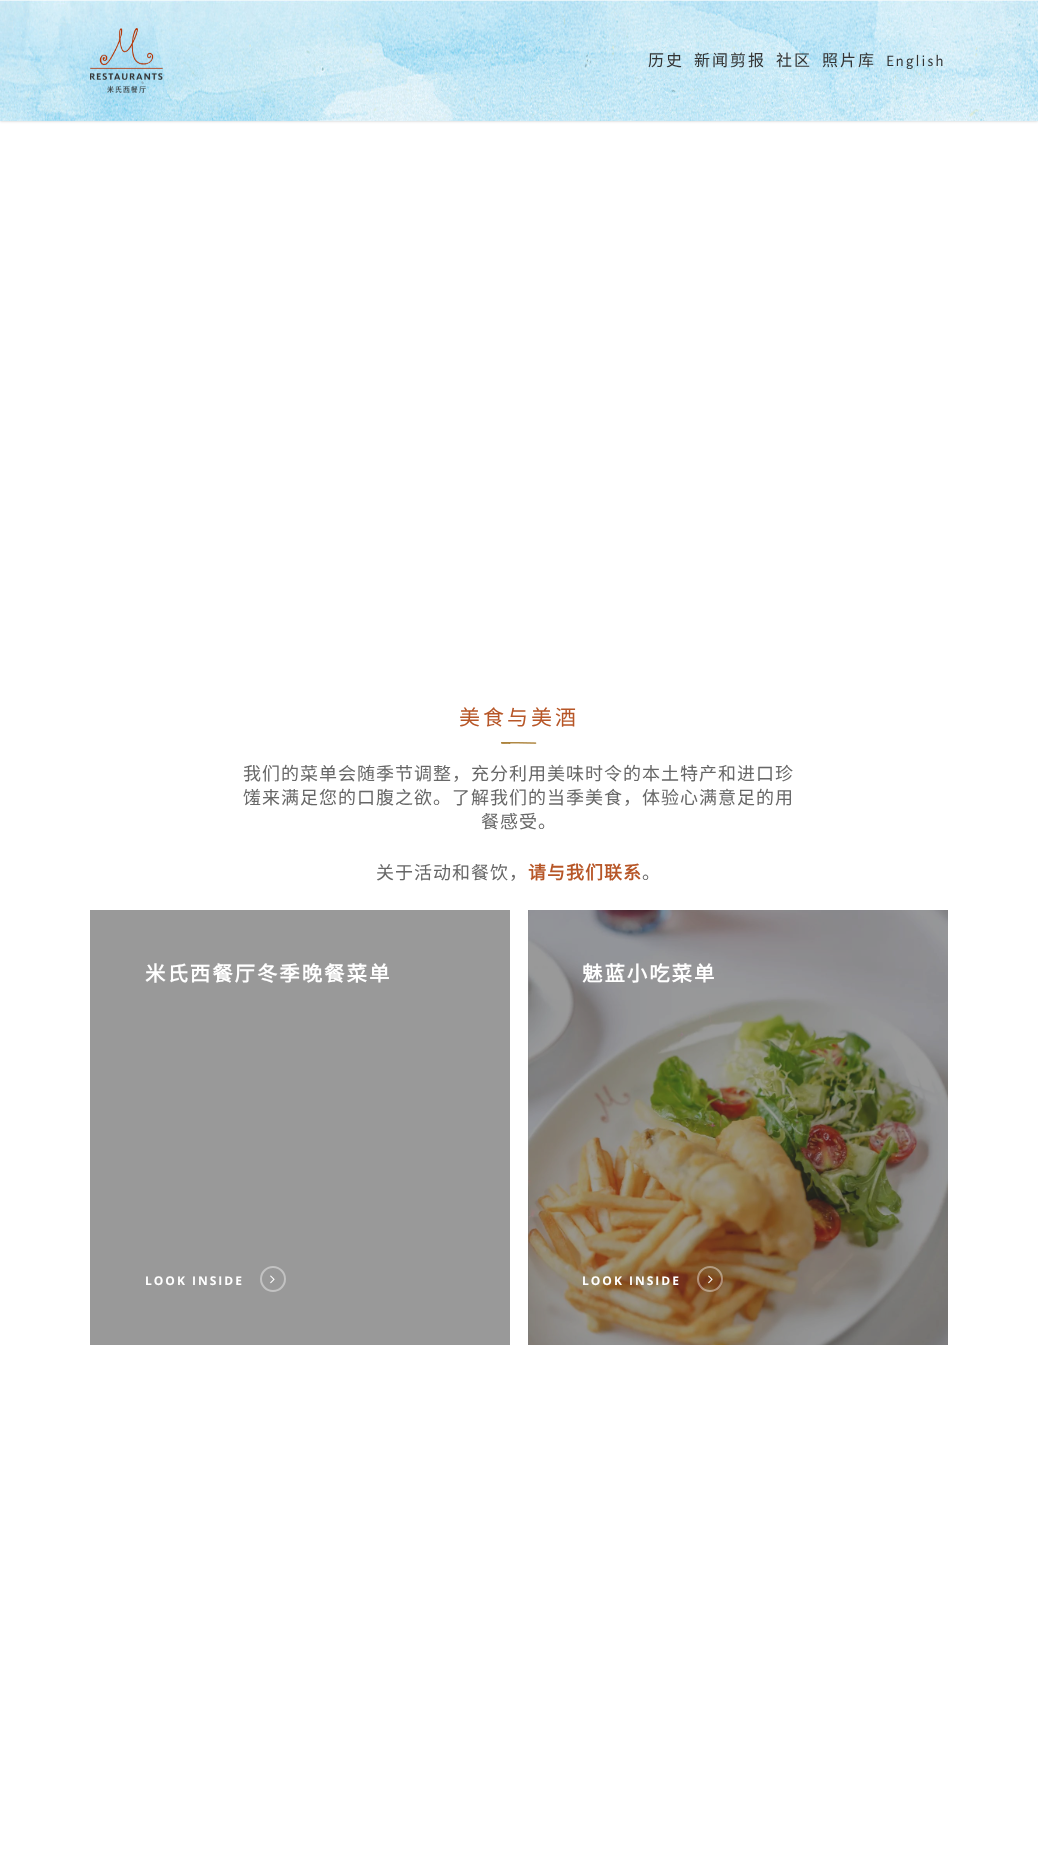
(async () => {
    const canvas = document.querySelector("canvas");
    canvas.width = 1038;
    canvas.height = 1851;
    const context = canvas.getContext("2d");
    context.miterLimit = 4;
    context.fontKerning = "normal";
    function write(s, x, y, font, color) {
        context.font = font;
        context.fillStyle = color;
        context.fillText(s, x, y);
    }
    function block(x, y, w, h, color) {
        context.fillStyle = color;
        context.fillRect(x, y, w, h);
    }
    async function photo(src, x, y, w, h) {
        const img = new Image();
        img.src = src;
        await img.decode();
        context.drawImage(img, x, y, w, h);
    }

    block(0, 0, 1038, 1851, "rgb(255, 255, 255)");
    context.fillStyle = "rgba(0, 0, 0, 0.22)";
    context.filter = "blur(1.5px)";
    context.beginPath();
    context.rect(0, 0, 1038, 121);
    context.fill();
    context.filter = "none";
    await photo("media/1.png", 0, 0, 1038, 121);
    await photo("media/2.png", 90, 28, 73, 65);
    context.letterSpacing = "2px";
    write("历史", 648, 66, "16px Noto Sans CJK SC", "rgb(51, 51, 51)");
    write("新闻剪报", 694, 66, "16px Noto Sans CJK SC", "rgb(51, 51, 51)");
    write("社区", 776, 66, "16px Noto Sans CJK SC", "rgb(51, 51, 51)");
    write("照片库", 822, 66, "16px Noto Sans CJK SC", "rgb(51, 51, 51)");
    write("English", 886, 66, "16px Alegreya Sans", "rgb(51, 51, 51)");
    context.letterSpacing = "3px";
    write("美食与美酒", 459, 725, "21px Noto Sans CJK SC", "rgb(183, 86, 39)");
    await photo("media/3.png", 501, 742, 36, 2);
    context.letterSpacing = "1px";
    write("我们的菜单会随季节调整，充分利用美味时令的本土特产和进口珍", 243, 780, "18px Noto Sans CJK SC", "rgb(103, 103, 103)");
    write("馐来满足您的口腹之欲。了解我们的当季美食，体验心满意足的用", 243, 804, "18px Noto Sans CJK SC", "rgb(103, 103, 103)");
    write("餐感受。", 481, 828, "18px Noto Sans CJK SC", "rgb(103, 103, 103)");
    write("关于活动和餐饮，", 376, 879, "18px Noto Sans CJK SC", "rgb(103, 103, 103)");
    write("请与我们联系", 528, 879, "bold 18px Noto Sans CJK SC", "rgb(183, 86, 39)");
    write("。", 642, 879, "18px Noto Sans CJK SC", "rgb(103, 103, 103)");
    block(90, 910, 420, 435, "rgb(153, 153, 153)");
    context.letterSpacing = "2px";
    write("米氏西餐厅冬季晚餐菜单", 145, 981, "bold 20.4px Noto Sans CJK SC", "rgb(255, 255, 255)");
    write("LOOK INSIDE", 145, 1285, "bold 12px Open Sans", "rgb(255, 255, 255)");
    context.beginPath();
    context.arc(273, 1279, 12, 0, Math.PI * 2);
    context.strokeStyle = "rgb(194, 194, 194)";
    context.lineWidth = 2;
    context.stroke();
    await photo("media/4.png", 270, 1275, 5, 9);
    await photo("media/5.png", 528, 910, 420, 435);
    write("魅蓝小吃菜单", 582, 981, "bold 20.4px Noto Sans CJK SC", "rgb(255, 255, 255)");
    write("LOOK INSIDE", 582, 1285, "bold 12px Open Sans", "rgb(255, 255, 255)");
    context.beginPath();
    context.arc(710, 1279, 12, 0, Math.PI * 2);
    context.strokeStyle = "rgba(255, 255, 255, 0.4)";
    context.stroke();
    await photo("media/6.png", 708, 1275, 5, 9);
})();
